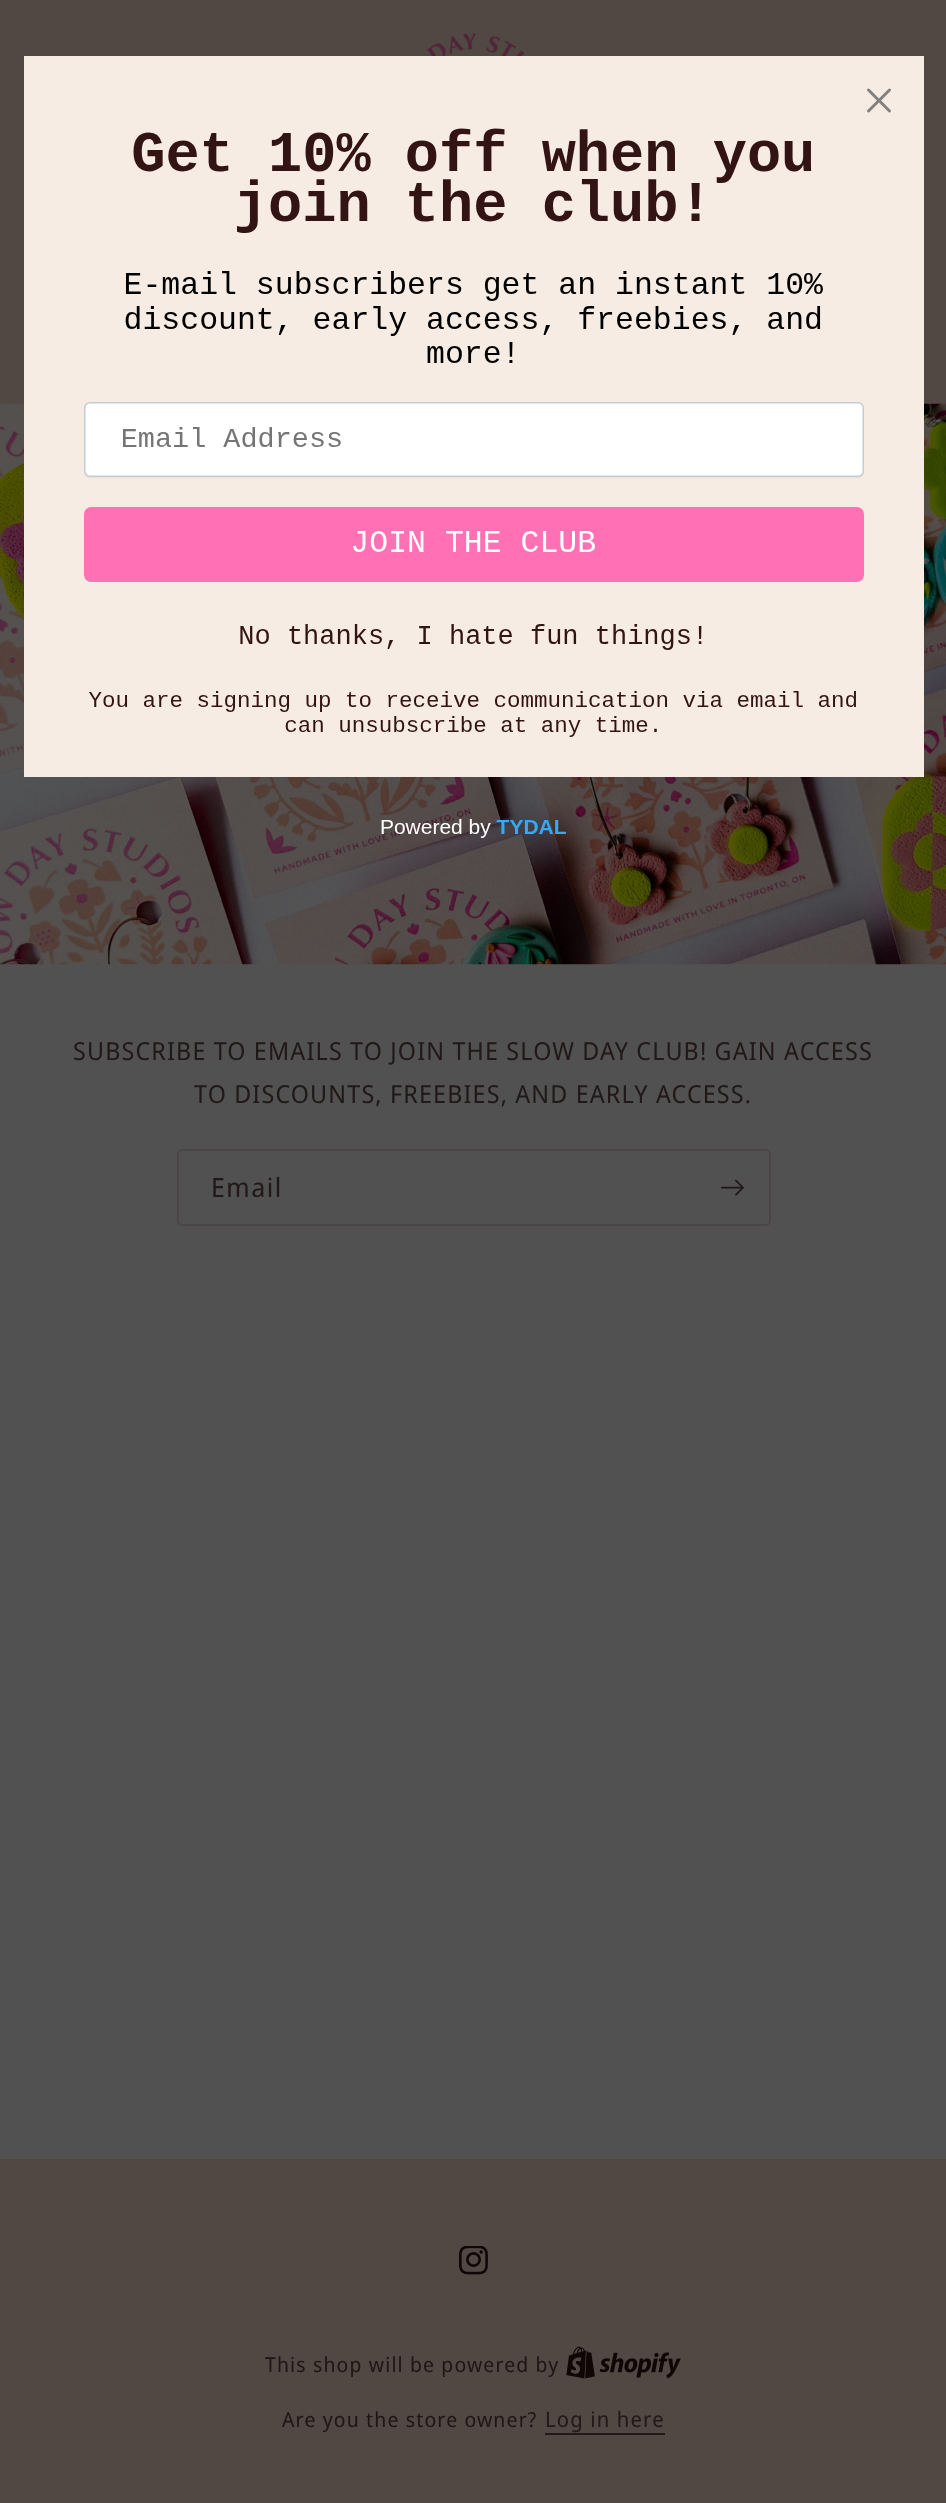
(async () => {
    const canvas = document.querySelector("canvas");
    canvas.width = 946;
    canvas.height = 2503;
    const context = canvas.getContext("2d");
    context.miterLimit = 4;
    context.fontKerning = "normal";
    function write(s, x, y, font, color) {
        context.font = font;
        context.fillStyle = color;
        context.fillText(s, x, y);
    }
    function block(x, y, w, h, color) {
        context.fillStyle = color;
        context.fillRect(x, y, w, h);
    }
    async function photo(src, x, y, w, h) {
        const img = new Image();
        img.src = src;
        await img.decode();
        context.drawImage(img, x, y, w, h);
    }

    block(0, 0, 946, 2503, "rgb(249, 246, 244)");
    block(0, 0, 946, 404, "rgb(246, 214, 202)");
    await photo("media/1.png", 427, 33, 98, 23);
    await photo("media/3.png", 0, 403, 946, 562);
    context.letterSpacing = "1.15px";
    write("SUBSCRIBE TO EMAILS TO JOIN THE SLOW DAY CLUB! GAIN ACCESS", 73, 1060, "24.75px Noto Sans Display", "rgb(101, 77, 76)");
    write("TO DISCOUNTS, FREEBIES, AND EARLY ACCESS.", 194, 1103, "24.75px Noto Sans Display", "rgb(101, 77, 76)");
    context.beginPath();
    context.roundRect(178, 1150, 592, 75, 4);
    context.strokeStyle = "rgba(51, 20, 20, 0.15)";
    context.lineWidth = 2;
    context.stroke();
    context.letterSpacing = "1.5px";
    write("Email", 211, 1197, "26.5px Noto Sans Display", "rgb(101, 77, 76)");
    await photo("media/4.png", 720, 1179, 24, 17);
    block(0, 2159, 946, 344, "rgb(246, 214, 202)");
    await photo("media/5.png", 459, 2246, 29, 29);
    context.letterSpacing = "1.15px";
    write("This shop will be powered by", 265, 2372, "20.6px Noto Sans Display", "rgb(100, 69, 66)");
    await photo("media/6.png", 566, 2346, 115, 33);
    write("Are you the store owner?", 282, 2427, "20.6px Noto Sans Display", "rgb(100, 69, 66)");
    write("Log in here", 545, 2427, "21.5px Noto Sans Display", "rgb(110, 78, 75)");
    block(545, 2433, 120, 2, "rgb(110, 78, 75)");
    await photo("media/2.png", 0, 0, 946, 2503);
})();
